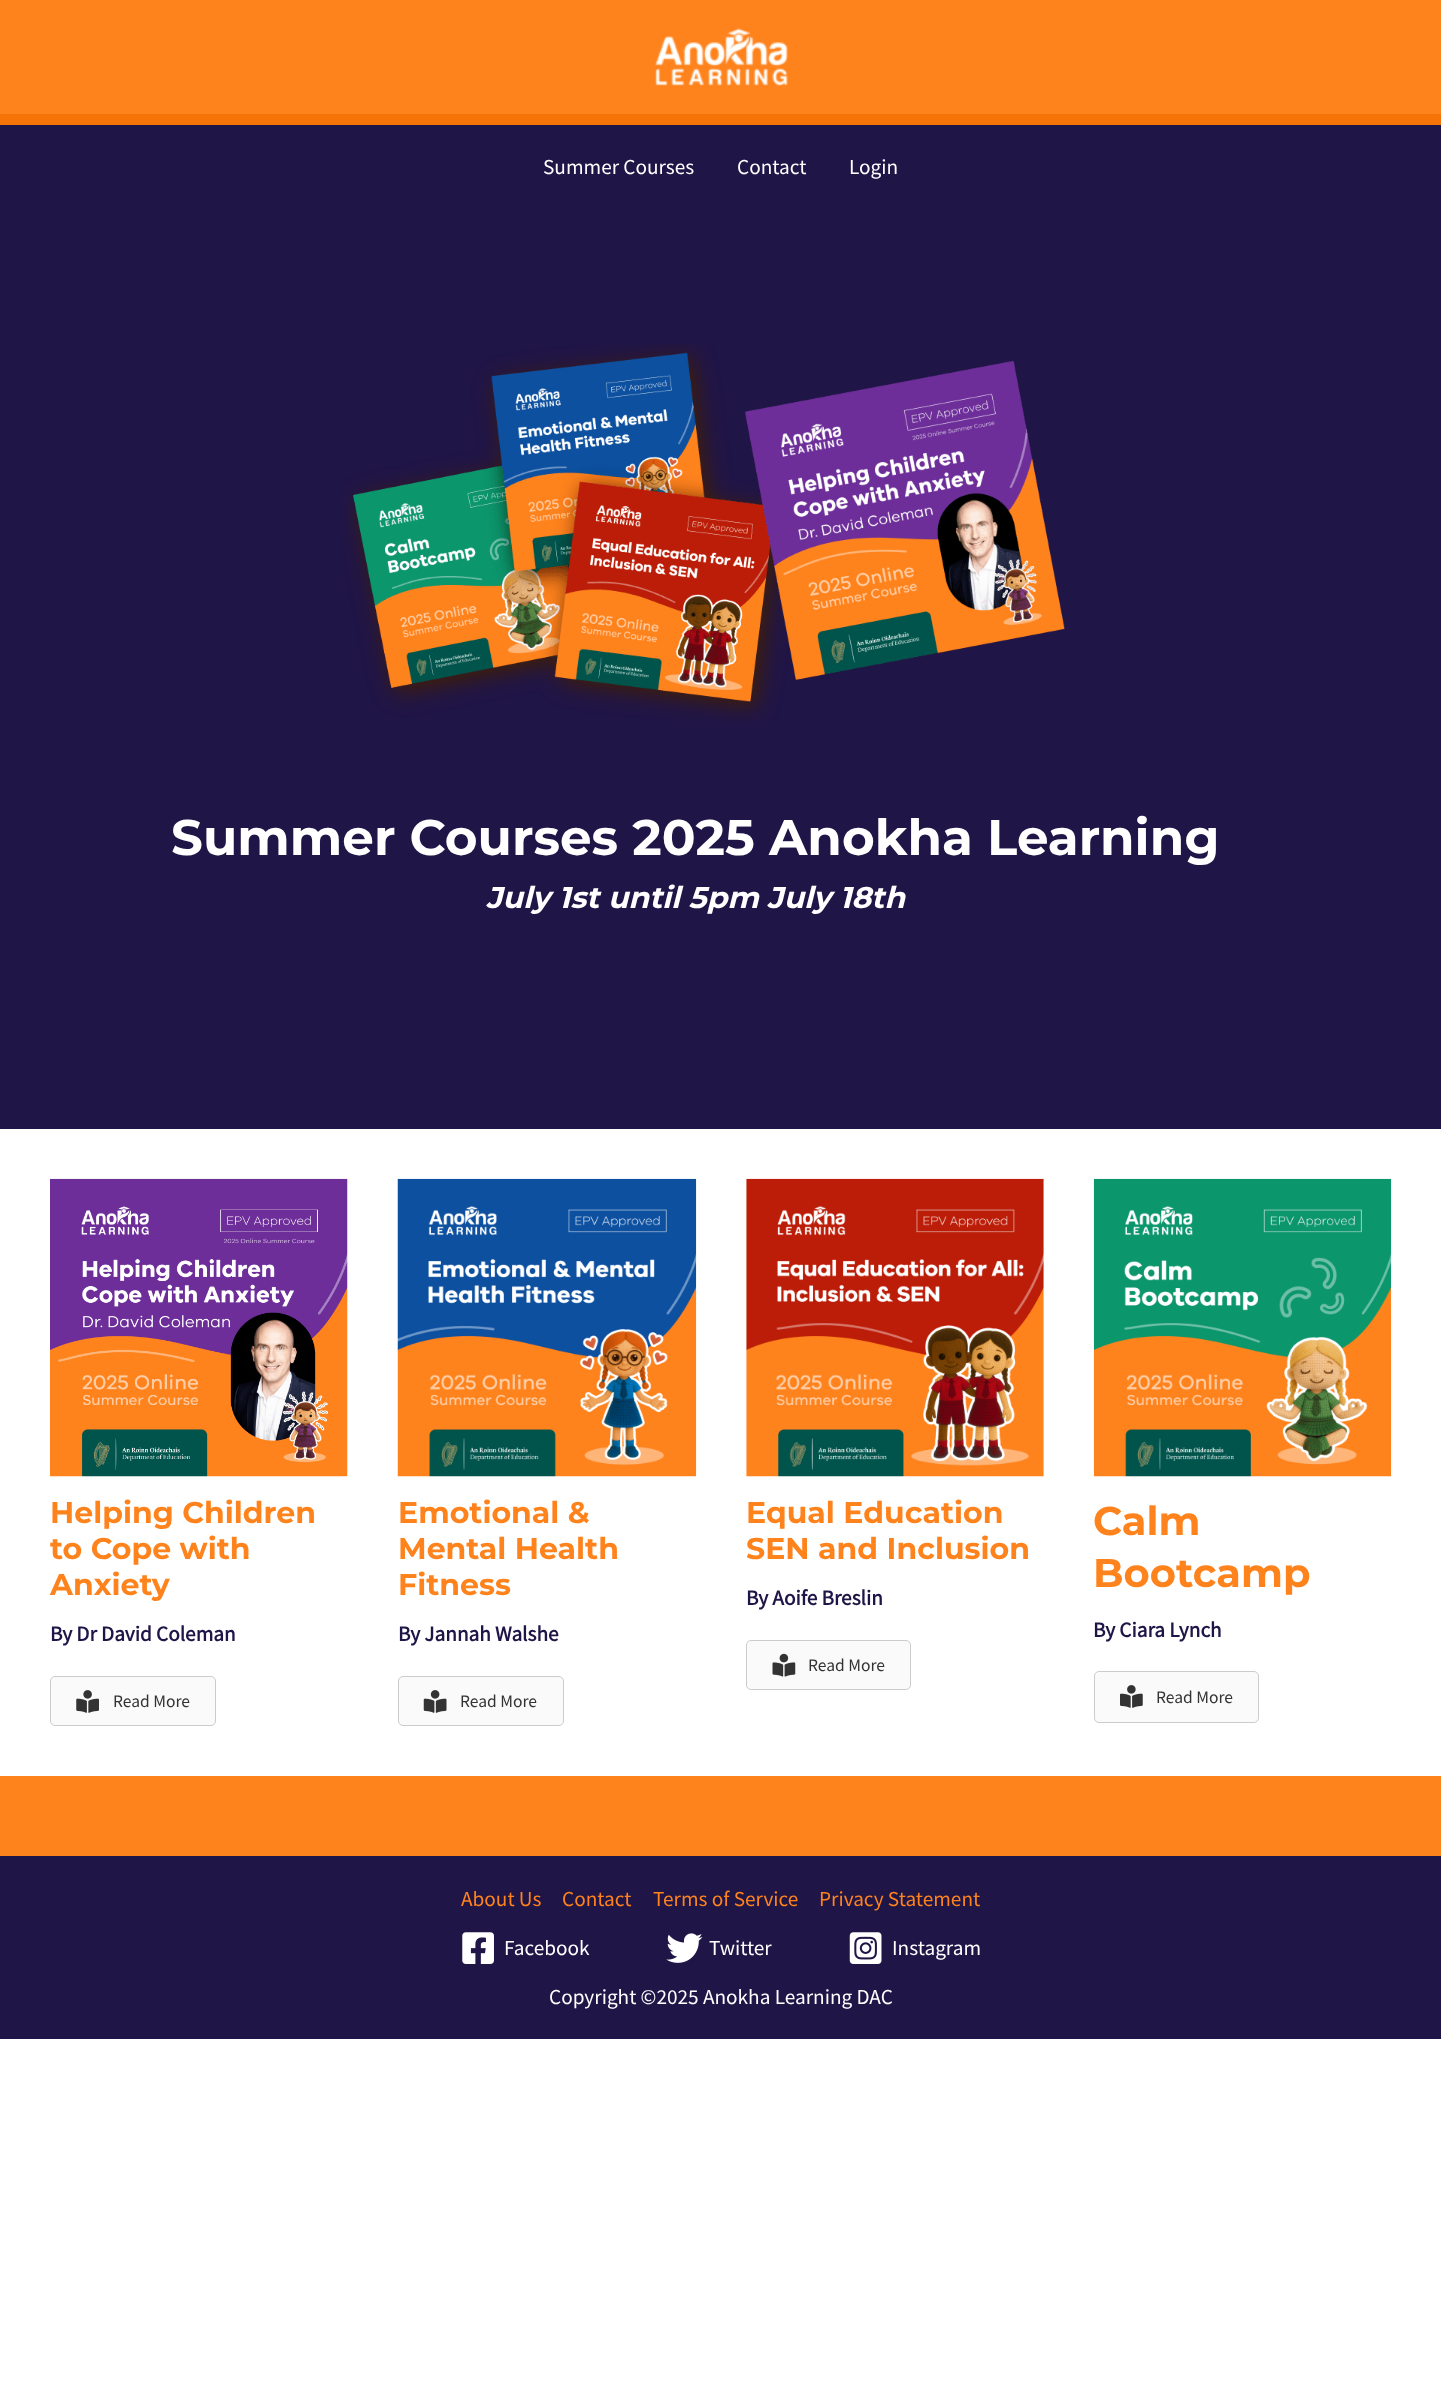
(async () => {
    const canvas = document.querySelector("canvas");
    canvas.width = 1441;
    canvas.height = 2402;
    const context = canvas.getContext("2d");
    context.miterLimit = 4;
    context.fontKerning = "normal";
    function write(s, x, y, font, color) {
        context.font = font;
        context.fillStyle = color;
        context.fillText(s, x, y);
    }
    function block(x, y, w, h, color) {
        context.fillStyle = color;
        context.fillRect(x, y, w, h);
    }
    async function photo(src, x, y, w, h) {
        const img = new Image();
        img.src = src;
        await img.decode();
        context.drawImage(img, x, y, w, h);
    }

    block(0, 0, 1441, 2402, "rgb(255, 255, 255)");
    block(0, 0, 1441, 114, "rgb(255, 131, 29)");
    block(0, 114, 1441, 11, "rgb(246, 115, 8)");
    await photo("media/1.png", 655, 28, 133, 58);
    block(0, 125, 1441, 1004, "rgb(32, 21, 71)");
    write("Summer Courses", 543, 174, "21.25px Source Sans Pro", "rgb(255, 255, 255)");
    write("Contact", 737, 174, "21.25px Source Sans Pro", "rgb(255, 255, 255)");
    write("Login", 849, 174, "21.25px Source Sans Pro", "rgb(255, 255, 255)");
    await photo("media/2.png", 344, 344, 721, 377);
    write("Summer Courses 2025 Anokha Learning", 171, 855, "100 50px Montserrat", "rgb(255, 255, 255)");
    write("July 1st until 5pm July 18th", 486, 908, "italic 100 30px Montserrat", "rgb(255, 255, 255)");
    await photo("media/3.png", 50, 1178, 298, 299);
    write("Helping Children", 50, 1523, "100 30px Montserrat", "rgb(255, 131, 29)");
    write("to Cope with", 50, 1559, "100 30px Montserrat", "rgb(255, 131, 29)");
    write("Anxiety", 50, 1595, "100 30px Montserrat", "rgb(255, 131, 29)");
    write("By Dr David Coleman", 50, 1641, "bold 21.25px Source Sans Pro", "rgb(32, 21, 71)");
    context.fillStyle = "rgb(250, 250, 250)";
    context.beginPath();
    context.roundRect(50.5, 1676.5, 165, 49, 4.5);
    context.fill();
    context.strokeStyle = "rgb(204, 204, 204)";
    context.stroke();
    await photo("media/4.png", 76, 1690, 23, 23);
    write("Read More", 113, 1707, "17.5px Source Sans Pro", "rgb(51, 51, 51)");
    await photo("media/5.png", 397, 1178, 300, 299);
    write("Emotional &", 398, 1523, "100 30px Montserrat", "rgb(255, 131, 29)");
    write("Mental Health", 398, 1559, "100 30px Montserrat", "rgb(255, 131, 29)");
    write("Fitness", 398, 1595, "100 30px Montserrat", "rgb(255, 131, 29)");
    write("By Jannah Walshe", 398, 1641, "bold 21.25px Source Sans Pro", "rgb(32, 21, 71)");
    context.fillStyle = "rgb(250, 250, 250)";
    context.beginPath();
    context.roundRect(398.5, 1676.5, 165, 49, 4.5);
    context.fill();
    context.stroke();
    await photo("media/6.png", 423, 1690, 24, 23);
    write("Read More", 460, 1707, "17.5px Source Sans Pro", "rgb(51, 51, 51)");
    await photo("media/7.png", 746, 1178, 298, 299);
    write("Equal Education", 746, 1523, "100 30px Montserrat", "rgb(255, 131, 29)");
    write("SEN and Inclusion", 746, 1559, "100 30px Montserrat", "rgb(255, 131, 29)");
    write("By Aoife Breslin", 746, 1605, "bold 21.25px Source Sans Pro", "rgb(32, 21, 71)");
    context.fillStyle = "rgb(250, 250, 250)";
    context.beginPath();
    context.roundRect(746.5, 1640.5, 164, 49, 4.5);
    context.fill();
    context.stroke();
    await photo("media/8.png", 772, 1653, 24, 24);
    write("Read More", 808, 1671, "17.5px Source Sans Pro", "rgb(51, 51, 51)");
    await photo("media/9.png", 1093, 1178, 299, 299);
    write("Calm", 1093, 1535, "100 40px Montserrat", "rgb(255, 131, 29)");
    write("Bootcamp", 1093, 1587, "100 40px Montserrat", "rgb(255, 131, 29)");
    write("By Ciara Lynch", 1093, 1637, "bold 21.25px Source Sans Pro", "rgb(32, 21, 71)");
    context.fillStyle = "rgb(250, 250, 250)";
    context.beginPath();
    context.roundRect(1094.5, 1671.5, 164, 51, 4.5);
    context.fill();
    context.stroke();
    await photo("media/10.png", 1120, 1685, 23, 23);
    write("Read More", 1156, 1703, "17.5px Source Sans Pro", "rgb(51, 51, 51)");
    block(0, 1856, 1441, 183, "rgb(32, 21, 71)");
    block(0, 1776, 1441, 80, "rgb(255, 131, 29)");
    write("About Us", 461, 1906, "21.25px Source Sans Pro", "rgb(255, 131, 29)");
    write("Contact", 562, 1906, "21.25px Source Sans Pro", "rgb(255, 131, 29)");
    write("Terms of Service", 653, 1906, "21.25px Source Sans Pro", "rgb(255, 131, 29)");
    write("Privacy Statement", 819, 1906, "21.25px Source Sans Pro", "rgb(255, 131, 29)");
    await photo("media/11.png", 462, 1932, 32, 32);
    write("Facebook", 504, 1955, "21.25px Source Sans Pro", "rgb(255, 255, 255)");
    await photo("media/12.png", 666, 1933, 37, 30);
    write("Twitter", 709, 1955, "21.25px Source Sans Pro", "rgb(255, 255, 255)");
    await photo("media/13.png", 849, 1932, 33, 32);
    write("Instagram", 892, 1955, "21.25px Source Sans Pro", "rgb(255, 255, 255)");
    write("Copyright ©2025 Anokha Learning DAC", 549, 2004, "21.25px Source Sans Pro", "rgb(255, 255, 255)");
})();
